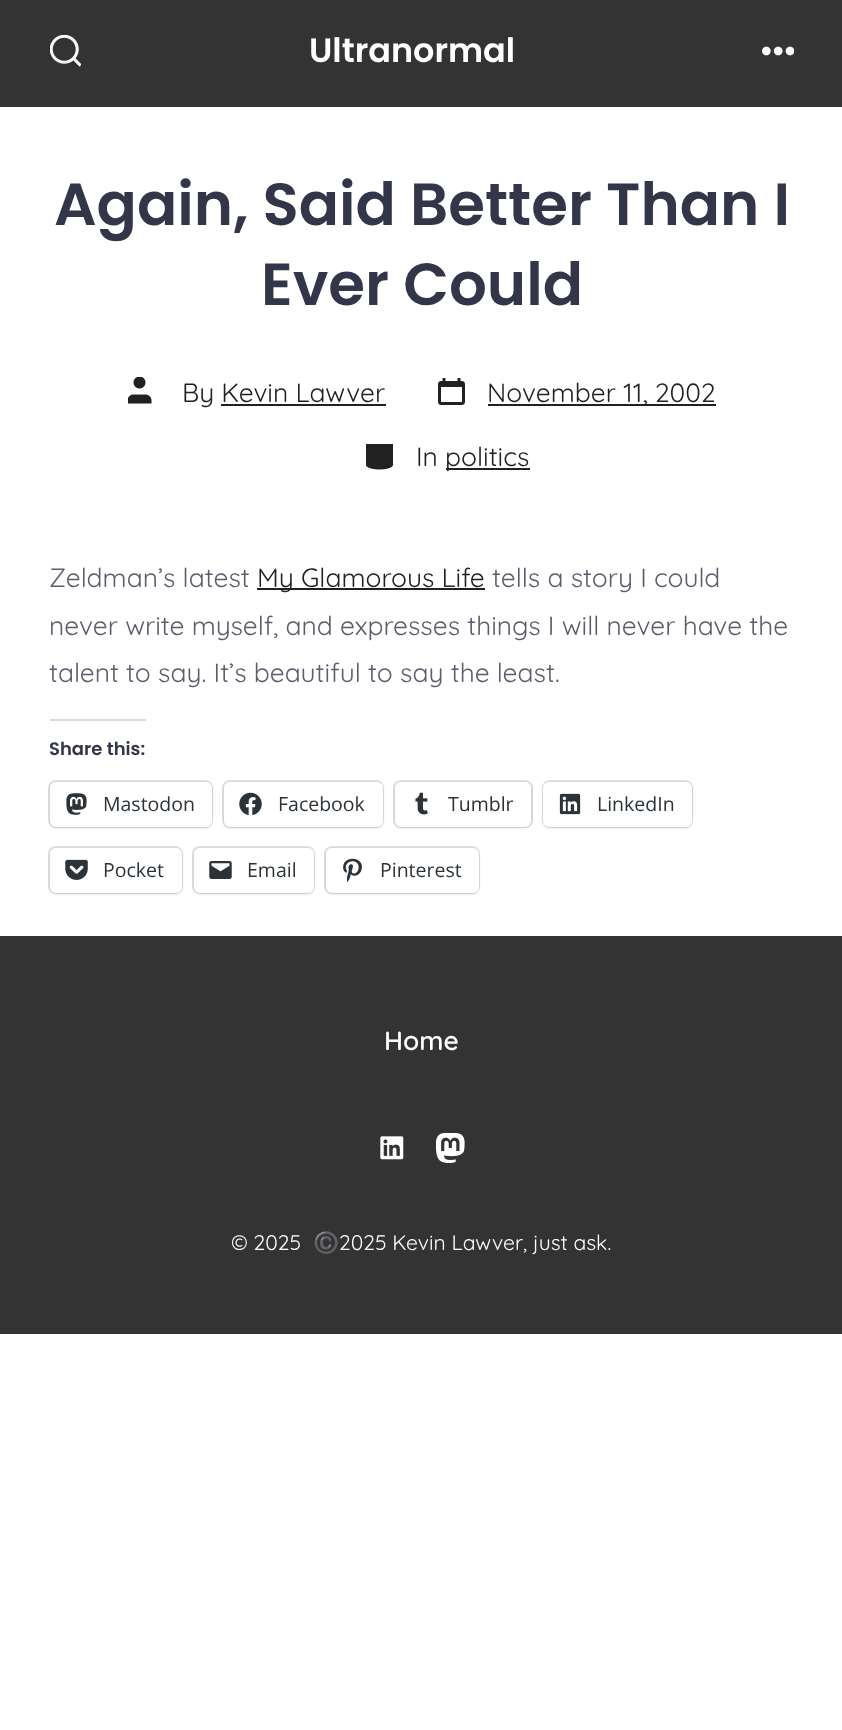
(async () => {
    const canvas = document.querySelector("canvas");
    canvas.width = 842;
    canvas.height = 1730;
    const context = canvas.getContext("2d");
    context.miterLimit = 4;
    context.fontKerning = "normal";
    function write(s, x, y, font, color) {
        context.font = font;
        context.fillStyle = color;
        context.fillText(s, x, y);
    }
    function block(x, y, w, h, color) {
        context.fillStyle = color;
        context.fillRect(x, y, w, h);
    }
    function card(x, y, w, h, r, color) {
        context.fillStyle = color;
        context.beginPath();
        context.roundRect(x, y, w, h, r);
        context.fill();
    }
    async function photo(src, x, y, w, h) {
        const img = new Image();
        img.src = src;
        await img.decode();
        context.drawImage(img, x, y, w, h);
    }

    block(0, 0, 842, 1730, "rgb(255, 255, 255)");
    block(0, 0, 842, 107, "rgb(51, 51, 51)");
    await photo("media/1.png", 50, 35, 31, 32);
    write("Ultranormal", 309, 62, "600 33.5px Poppins", "rgb(255, 255, 255)");
    await photo("media/2.png", 762, 46, 32, 10);
    write("Again, Said Better Than I", 54, 225, "600 59.5px Poppins", "rgb(50, 54, 72)");
    write("Ever Could", 261, 305, "600 59.5px Poppins", "rgb(50, 54, 72)");
    await photo("media/3.png", 128, 377, 24, 27);
    write("By Kevin Lawver", 182, 402, "26.4px Quicksand", "rgb(33, 33, 33)");
    block(221, 404, 165, 2, "rgb(33, 33, 33)");
    await photo("media/4.png", 438, 378, 27, 27);
    block(488, 404, 228, 2, "rgb(33, 33, 33)");
    write("November 11, 2002", 487, 402, "26.4px Quicksand", "rgb(33, 33, 33)");
    await photo("media/5.png", 366, 444, 27, 26);
    write("In", 416, 466, "26.4px Quicksand", "rgb(33, 33, 33)");
    block(446, 468, 84, 2, "rgb(33, 33, 33)");
    write("politics", 445, 466, "26.4px Quicksand", "rgb(33, 33, 33)");
    write("Zeldman’s latest", 49, 587, "26.4px Quicksand", "rgb(90, 93, 108)");
    block(257, 588, 228, 2, "rgb(33, 33, 33)");
    write("My Glamorous Life", 257, 587, "26.4px Quicksand", "rgb(33, 33, 33)");
    write("tells a story I could", 492, 587, "26.4px Quicksand", "rgb(90, 93, 108)");
    write("never write myself, and expresses things I will never have the", 49, 635, "26.4px Quicksand", "rgb(90, 93, 108)");
    write("talent to say. It’s beautiful to say the least.", 49, 682, "26.4px Quicksand", "rgb(90, 93, 108)");
    block(50, 719, 96, 2, "rgb(220, 220, 222)");
    write("Share this:", 49, 755, "600 18px Poppins", "rgb(50, 54, 72)");
    context.beginPath();
    context.roundRect(49, 781, 163, 46, 7);
    context.strokeStyle = "rgb(224, 224, 224)";
    context.lineWidth = 2;
    context.stroke();
    context.fillStyle = "rgba(0, 0, 0, 0.12)";
    context.filter = "blur(1.5px)";
    context.beginPath();
    context.roundRect(50, 783, 162, 45, 6);
    context.fill();
    context.filter = "none";
    card(50, 782, 162, 45, 6, "rgb(255, 255, 255)");
    await photo("media/6.png", 66, 793, 21, 22);
    write("Mastodon", 103, 811, "19.5px Open Sans", "rgb(44, 51, 56)");
    context.beginPath();
    context.roundRect(223, 781, 160, 46, 7);
    context.stroke();
    context.fillStyle = "rgba(0, 0, 0, 0.12)";
    context.filter = "blur(1.5px)";
    context.beginPath();
    context.roundRect(224, 783, 159, 45, 6);
    context.fill();
    context.filter = "none";
    card(224, 782, 159, 45, 6, "rgb(255, 255, 255)");
    await photo("media/7.png", 239, 792, 23, 24);
    write("Facebook", 278, 811, "19.5px Open Sans", "rgb(44, 51, 56)");
    context.beginPath();
    context.roundRect(394, 781, 138, 46, 7);
    context.stroke();
    context.fillStyle = "rgba(0, 0, 0, 0.12)";
    context.filter = "blur(1.5px)";
    context.beginPath();
    context.roundRect(395, 783, 136, 45, 6);
    context.fill();
    context.filter = "none";
    card(395, 782, 136, 45, 6, "rgb(255, 255, 255)");
    await photo("media/8.png", 415, 792, 13, 23);
    write("Tumblr", 448, 811, "19.5px Open Sans", "rgb(44, 51, 56)");
    context.beginPath();
    context.roundRect(543, 781, 149, 46, 7);
    context.stroke();
    context.fillStyle = "rgba(0, 0, 0, 0.12)";
    context.filter = "blur(1.5px)";
    context.beginPath();
    context.roundRect(543, 783, 149, 45, 6);
    context.fill();
    context.filter = "none";
    card(543, 782, 149, 45, 6, "rgb(255, 255, 255)");
    await photo("media/9.png", 559, 793, 22, 22);
    write("LinkedIn", 597, 811, "19.5px Open Sans", "rgb(44, 51, 56)");
    context.beginPath();
    context.roundRect(49, 847, 133, 46, 7);
    context.stroke();
    context.fillStyle = "rgba(0, 0, 0, 0.12)";
    context.filter = "blur(1.5px)";
    context.beginPath();
    context.roundRect(50, 849, 132, 45, 6);
    context.fill();
    context.filter = "none";
    card(50, 848, 132, 45, 6, "rgb(255, 255, 255)");
    await photo("media/10.png", 65, 859, 23, 21);
    write("Pocket", 103, 877, "19.5px Open Sans", "rgb(44, 51, 56)");
    context.beginPath();
    context.roundRect(193, 847, 121, 46, 7);
    context.stroke();
    context.fillStyle = "rgba(0, 0, 0, 0.12)";
    context.filter = "blur(1.5px)";
    context.beginPath();
    context.roundRect(194, 849, 120, 45, 6);
    context.fill();
    context.filter = "none";
    card(194, 848, 120, 45, 6, "rgb(255, 255, 255)");
    await photo("media/11.png", 209, 861, 23, 18);
    write("Email", 247, 877, "19.5px Open Sans", "rgb(44, 51, 56)");
    context.beginPath();
    context.roundRect(325, 847, 154, 46, 7);
    context.stroke();
    context.fillStyle = "rgba(0, 0, 0, 0.12)";
    context.filter = "blur(1.5px)";
    context.beginPath();
    context.roundRect(326, 849, 153, 45, 6);
    context.fill();
    context.filter = "none";
    card(326, 848, 153, 45, 6, "rgb(255, 255, 255)");
    await photo("media/12.png", 343, 858, 19, 24);
    write("Pinterest", 380, 877, "19.5px Open Sans", "rgb(44, 51, 56)");
    block(0, 936, 842, 398, "rgb(51, 51, 51)");
    write("Home", 384, 1050, "600 26.4px Quicksand", "rgb(255, 255, 255)");
    await photo("media/13.png", 380, 1136, 24, 24);
    await photo("media/14.png", 435, 1133, 30, 30);
    write("© 2025", 231, 1250, "21.1px Quicksand", "rgb(255, 255, 255)");
    write("©️", 313, 1250, "21.1px Noto Color Emoji", "rgb(255, 255, 255)");
    write("2025 Kevin Lawver, just ask.", 339, 1250, "21.1px Quicksand", "rgb(255, 255, 255)");
})();
